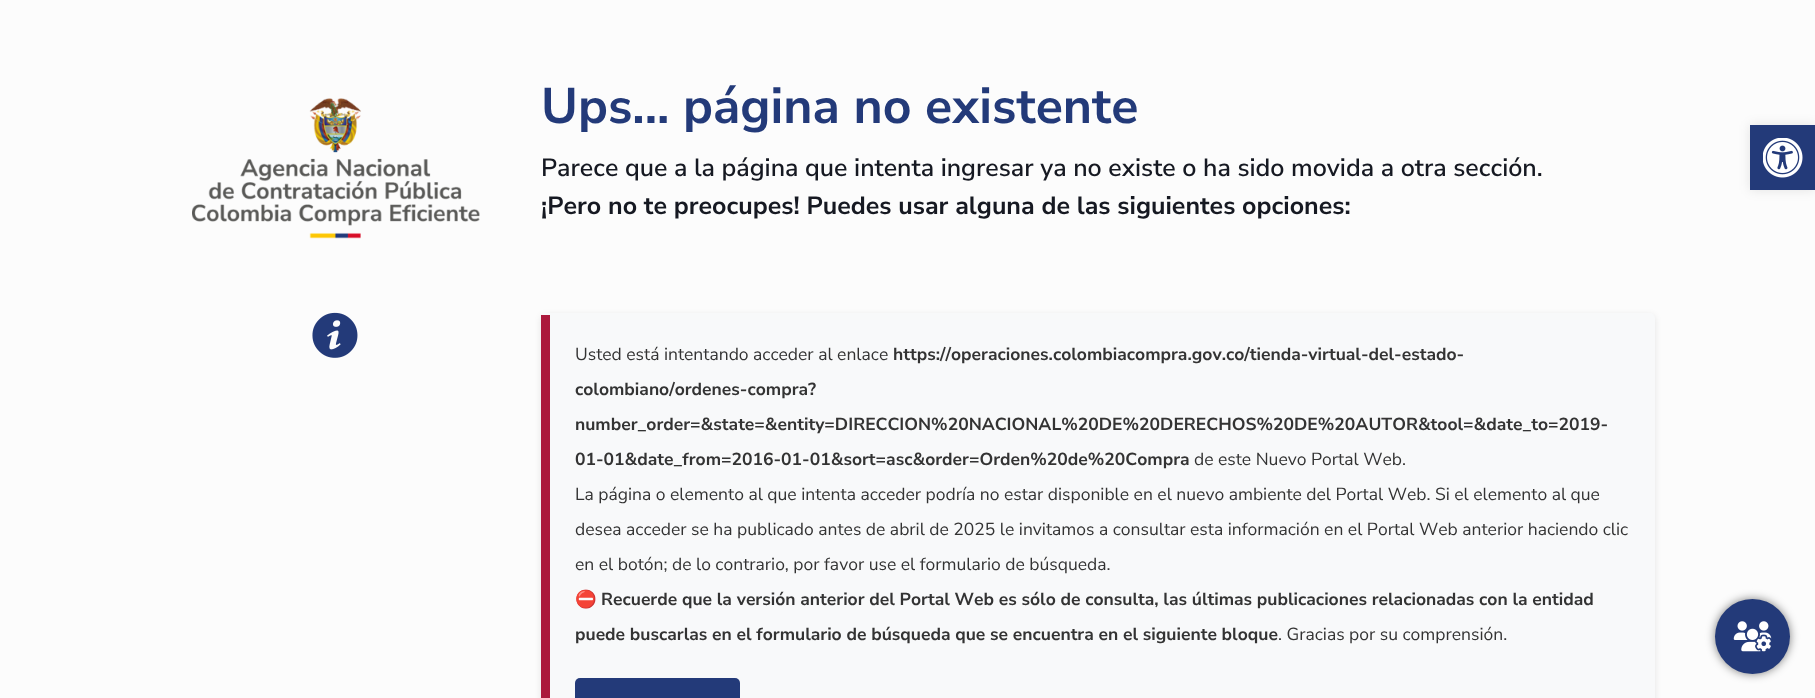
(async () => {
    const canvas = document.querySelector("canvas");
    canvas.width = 1815;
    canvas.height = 698;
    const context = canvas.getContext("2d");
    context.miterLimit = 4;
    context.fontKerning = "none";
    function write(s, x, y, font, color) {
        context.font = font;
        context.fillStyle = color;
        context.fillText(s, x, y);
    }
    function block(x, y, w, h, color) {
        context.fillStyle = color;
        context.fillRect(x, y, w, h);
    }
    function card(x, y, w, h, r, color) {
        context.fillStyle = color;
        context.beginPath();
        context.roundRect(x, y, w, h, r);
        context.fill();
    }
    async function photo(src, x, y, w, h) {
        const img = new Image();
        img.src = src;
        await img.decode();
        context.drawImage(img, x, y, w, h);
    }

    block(0, 0, 1815, 698, "rgb(252, 252, 252)");
    await photo("media/1.png", 192, 98, 288, 141);
    await photo("media/2.png", 312, 312, 46, 46);
    write("Ups... página no existente", 541, 123, "200 50px Nunito Sans", "rgb(35, 58, 121)");
    write("Parece que a la página que intenta ingresar ya no existe o ha sido movida a otra sección.", 541, 176, "200 25px 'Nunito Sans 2'", "rgb(22, 25, 34)");
    write("¡Pero no te preocupes! Puedes usar alguna de las siguientes opciones:", 541, 214, "200 25px Nunito Sans", "rgb(22, 25, 34)");
    context.fillStyle = "rgba(0, 0, 0, 0.1)";
    context.filter = "blur(3px)";
    context.beginPath();
    context.roundRect(541, 315, 1114, 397, 5);
    context.fill();
    context.filter = "none";
    card(541, 313, 1114, 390, 5, "rgb(248, 249, 250)");
    block(541, 315, 9, 383, "rgb(171, 25, 60)");
    write("Usted está intentando acceder al enlace", 575, 360, "200 17.5px 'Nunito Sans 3'", "rgb(51, 51, 51)");
    write("https://operaciones.colombiacompra.gov.co/tienda-virtual-del-estado-", 893, 360, "200 17.5px Nunito Sans", "rgb(51, 51, 51)");
    write("colombiano/ordenes-compra?", 575, 395, "200 17.5px Nunito Sans", "rgb(51, 51, 51)");
    write("number_order=&state=&entity=DIRECCION%20NACIONAL%20DE%20DERECHOS%20DE%20AUTOR&tool=&date_to=2019-", 575, 430, "200 17.5px Nunito Sans", "rgb(51, 51, 51)");
    write("01-01&date_from=2016-01-01&sort=asc&order=Orden%20de%20Compra", 575, 465, "200 17.5px Nunito Sans", "rgb(51, 51, 51)");
    write("de este Nuevo Portal Web.", 1194, 465, "200 17.5px 'Nunito Sans 3'", "rgb(51, 51, 51)");
    write("La página o elemento al que intenta acceder podría no estar disponible en el nuevo ambiente del Portal Web. Si el elemento al que", 575, 500, "200 17.5px 'Nunito Sans 3'", "rgb(51, 51, 51)");
    write("desea acceder se ha publicado antes de abril de 2025 le invitamos a consultar esta información en el Portal Web anterior haciendo clic", 575, 535, "200 17.5px 'Nunito Sans 3'", "rgb(51, 51, 51)");
    write("en el botón; de lo contrario, por favor use el formulario de búsqueda.", 575, 570, "200 17.5px 'Nunito Sans 3'", "rgb(51, 51, 51)");
    write("⛔", 575, 605, "17.5px Noto Color Emoji", "rgb(51, 51, 51)");
    write("Recuerde que la versión anterior del Portal Web es sólo de consulta, las últimas publicaciones relacionadas con la entidad", 601, 605, "200 17.5px Nunito Sans", "rgb(51, 51, 51)");
    write("puede buscarlas en el formulario de búsqueda que se encuentra en el siguiente bloque", 575, 640, "200 17.5px Nunito Sans", "rgb(51, 51, 51)");
    write(". Gracias por su comprensión.", 1278, 640, "200 17.5px 'Nunito Sans 3'", "rgb(51, 51, 51)");
    card(575, 678, 165, 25, 5, "rgb(35, 58, 121)");
    context.fillStyle = "rgba(0, 0, 0, 0.1)";
    context.filter = "blur(6px)";
    context.beginPath();
    context.rect(1750, 125, 65, 65);
    context.fill();
    context.filter = "none";
    block(1750, 125, 65, 65, "rgb(35, 58, 121)");
    await photo("media/3.png", 1763, 138, 40, 40);
    context.fillStyle = "rgba(0, 0, 0, 0.5)";
    context.filter = "blur(5px)";
    context.beginPath();
    context.roundRect(1715, 599, 75, 75, 37.5);
    context.fill();
    context.filter = "none";
    context.fillStyle = "rgb(35, 58, 121)";
    context.beginPath();
    context.arc(1752.5, 636.5, 37.5, 0, Math.PI * 2);
    context.fill();
    await photo("media/4.png", 1733, 621, 39, 31);
})();
